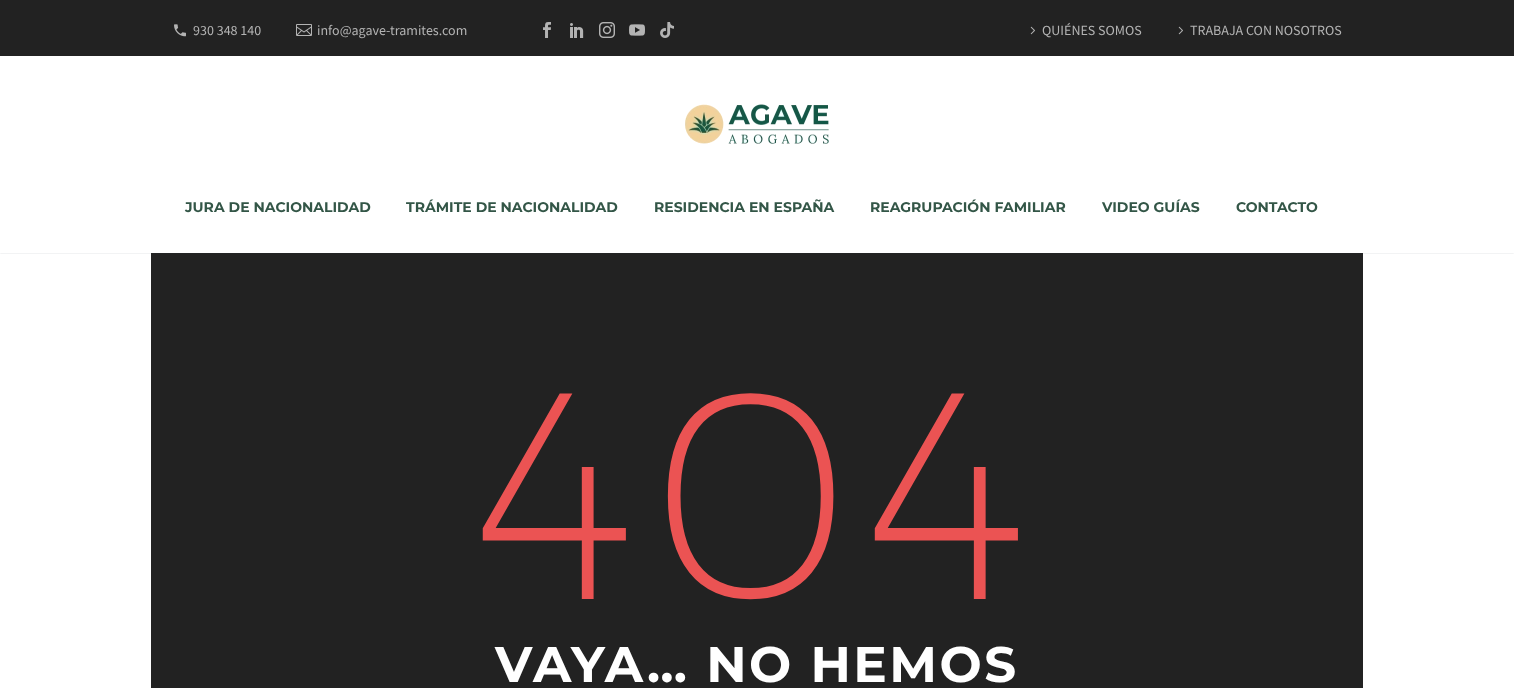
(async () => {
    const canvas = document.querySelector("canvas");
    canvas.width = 1514;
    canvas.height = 688;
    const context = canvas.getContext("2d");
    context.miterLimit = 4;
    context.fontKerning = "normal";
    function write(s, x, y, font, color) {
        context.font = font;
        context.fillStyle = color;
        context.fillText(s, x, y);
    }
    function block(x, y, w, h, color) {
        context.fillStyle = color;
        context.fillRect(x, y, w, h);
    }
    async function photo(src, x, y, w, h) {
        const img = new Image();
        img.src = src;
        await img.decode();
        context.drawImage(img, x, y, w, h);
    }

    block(0, 0, 1514, 688, "rgb(255, 255, 255)");
    block(151, 253, 1212, 435, "rgb(34, 34, 34)");
    context.save();
    context.beginPath();
    context.rect(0, 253, 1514, 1);
    context.clip();
    context.fillStyle = "rgba(56, 69, 84, 0.2)";
    context.filter = "blur(1px)";
    context.beginPath();
    context.rect(0, 0, 1514, 253);
    context.fill();
    context.filter = "none";
    context.restore();
    block(0, 0, 1514, 56, "rgb(34, 34, 34)");
    await photo("media/1.png", 174, 24, 12, 13);
    write("930 348 140", 193, 35, "14px Source Sans Pro", "rgb(179, 179, 179)");
    await photo("media/2.png", 296, 24, 16, 12);
    write("info@agave-tramites.com", 317, 35, "14px Source Sans Pro", "rgb(179, 179, 179)");
    await photo("media/3.png", 543, 22, 8, 16);
    await photo("media/4.png", 570, 23, 14, 15);
    await photo("media/5.png", 599, 22, 16, 16);
    await photo("media/6.png", 629, 24, 16, 12);
    await photo("media/7.png", 660, 22, 14, 16);
    await photo("media/8.png", 1030, 26, 5, 9);
    write("QUIÉNES SOMOS", 1042, 35, "14px Source Sans Pro", "rgb(179, 179, 179)");
    await photo("media/8.png", 1178, 26, 5, 9);
    write("TRABAJA CON NOSOTROS", 1190, 35, "14px Source Sans Pro", "rgb(179, 179, 179)");
    await photo("media/9.png", 685, 104, 144, 40);
    write("JURA DE NACIONALIDAD", 185, 212, "bold 14px Montserrat", "rgb(51, 86, 71)");
    write("TRÁMITE DE NACIONALIDAD", 406, 212, "bold 14px Montserrat", "rgb(51, 86, 71)");
    write("RESIDENCIA EN ESPAÑA", 654, 212, "bold 14px Montserrat", "rgb(51, 86, 71)");
    write("REAGRUPACIÓN FAMILIAR", 870, 212, "bold 14px Montserrat", "rgb(51, 86, 71)");
    write("VIDEO GUÍAS", 1102, 212, "bold 14px Montserrat", "rgb(51, 86, 71)");
    write("CONTACTO", 1236, 212, "bold 14px Montserrat", "rgb(51, 86, 71)");
    context.letterSpacing = "15px";
    write("404", 473, 599, "200 294px Montserrat", "rgb(235, 83, 83)");
    context.letterSpacing = "2.5px";
    write("VAYA… NO HEMOS", 495, 682, "bold 50px Montserrat", "rgb(255, 255, 255)");
})();
